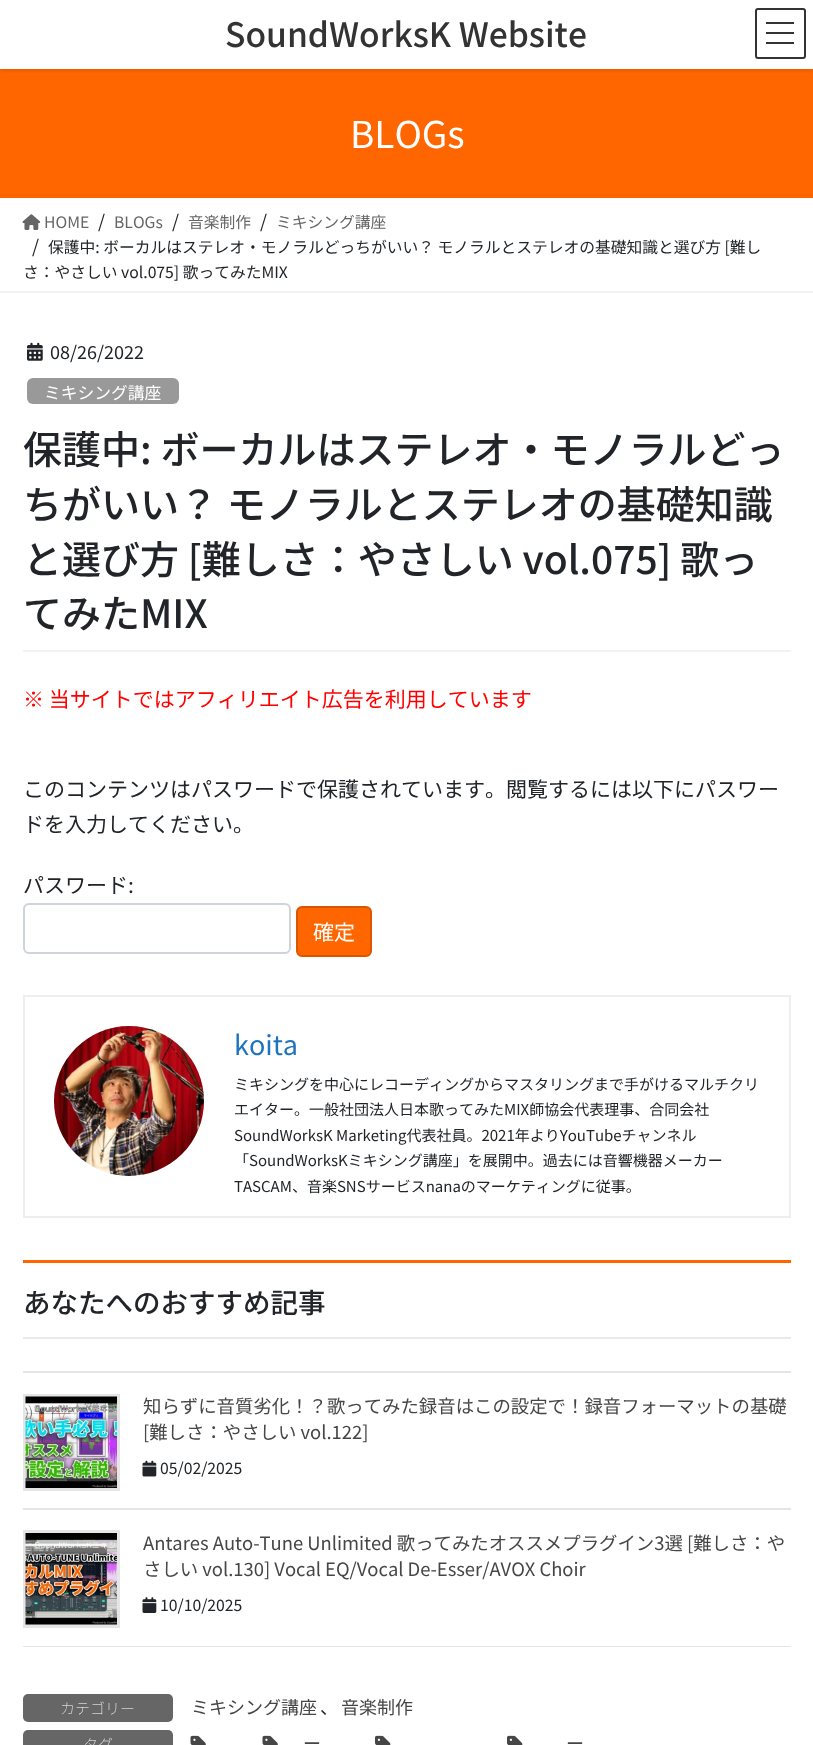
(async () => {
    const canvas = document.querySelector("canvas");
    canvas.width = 813;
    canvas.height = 1745;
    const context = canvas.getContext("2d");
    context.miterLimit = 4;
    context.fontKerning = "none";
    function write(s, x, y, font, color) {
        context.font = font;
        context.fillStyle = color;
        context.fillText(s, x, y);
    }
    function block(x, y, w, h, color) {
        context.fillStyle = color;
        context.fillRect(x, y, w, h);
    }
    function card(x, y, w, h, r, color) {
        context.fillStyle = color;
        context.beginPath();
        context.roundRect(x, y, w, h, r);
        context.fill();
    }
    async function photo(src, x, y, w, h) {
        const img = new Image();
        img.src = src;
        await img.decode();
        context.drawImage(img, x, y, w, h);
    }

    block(0, 0, 813, 1745, "rgb(255, 255, 255)");
    block(0, 69, 813, 129, "rgb(255, 102, 0)");
    context.save();
    context.beginPath();
    context.rect(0, 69, 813, 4);
    context.clip();
    context.fillStyle = "rgba(0, 0, 0, 0.1)";
    context.filter = "blur(2px)";
    context.beginPath();
    context.rect(0, 2, 813, 69);
    context.fill();
    context.filter = "none";
    context.restore();
    write("SoundWorksK Website", 225, 47, "500 33.6px Noto Sans JP", "rgb(51, 51, 51)");
    block(766, 22, 28, 2, "rgb(51, 51, 51)");
    block(766, 32, 28, 2, "rgb(51, 51, 51)");
    block(766, 42, 28, 2, "rgb(51, 51, 51)");
    context.beginPath();
    context.roundRect(756, 9, 49, 49, 2);
    context.strokeStyle = "rgb(51, 51, 51)";
    context.lineWidth = 2;
    context.stroke();
    write("BLOGs", 350, 148, "37px Noto Sans JP", "rgb(255, 255, 255)");
    block(0, 291, 813, 2, "rgb(242, 242, 242)");
    await photo("media/1.png", 22, 214, 19, 16);
    write("HOME", 44, 228, "15.75px Noto Sans JP", "rgb(102, 102, 102)");
    write("/", 98, 228, "18px Noto Sans JP", "rgb(33, 37, 41)");
    write("BLOGs", 114, 228, "15.75px Noto Sans JP", "rgb(102, 102, 102)");
    write("/", 172, 228, "18px Noto Sans JP", "rgb(33, 37, 41)");
    write("音楽制作", 188, 228, "15.75px Noto Sans JP", "rgb(102, 102, 102)");
    write("/", 260, 228, "18px Noto Sans JP", "rgb(33, 37, 41)");
    write("ミキシング講座", 276, 228, "15.75px Noto Sans JP", "rgb(102, 102, 102)");
    write("/", 32, 253, "18px Noto Sans JP", "rgb(33, 37, 41)");
    write("保護中: ボーカルはステレオ・モノラルどっちがいい？ モノラルとステレオの基礎知識と選び方 [難し", 48, 253, "15.75px Noto Sans JP", "rgb(33, 37, 41)");
    write("さ：やさしい vol.075] 歌ってみたMIX", 23, 278, "15.75px Noto Sans JP", "rgb(33, 37, 41)");
    block(23, 650, 768, 2, "rgb(242, 242, 242)");
    await photo("media/2.png", 27, 342, 16, 19);
    write("08/26/2022", 50, 359, "18px Noto Sans JP", "rgb(33, 37, 41)");
    card(27, 378, 152, 26, 6, "rgb(153, 153, 153)");
    write("ミキシング講座", 44, 399, "16.75px Noto Sans JP", "rgb(255, 255, 255)");
    write("保護中: ボーカルはステレオ・モノラルどっ", 23, 464, "500 39px Noto Sans JP", "rgb(33, 37, 41)");
    write("ちがいい？ モノラルとステレオの基礎知識", 23, 519, "500 39px Noto Sans JP", "rgb(33, 37, 41)");
    write("と選び方 [難しさ：やさしい vol.075] 歌っ", 23, 574, "500 39px Noto Sans JP", "rgb(33, 37, 41)");
    write("てみたMIX", 23, 628, "500 39px Noto Sans JP", "rgb(33, 37, 41)");
    write("※ 当サイトではアフィリエイト広告を利用しています", 23, 707, "21px Noto Sans JP", "rgb(255, 0, 0)");
    write("このコンテンツはパスワードで保護されています。閲覧するには以下にパスワー", 23, 797, "21px Noto Sans JP", "rgb(33, 37, 41)");
    write("ドを入力してください。", 23, 832, "21px Noto Sans JP", "rgb(33, 37, 41)");
    write("パスワード:", 23, 893, "21px Noto Sans JP", "rgb(33, 37, 41)");
    context.beginPath();
    context.roundRect(24, 904, 266, 49, 5);
    context.strokeStyle = "rgb(206, 212, 218)";
    context.stroke();
    context.fillStyle = "rgb(255, 102, 0)";
    context.beginPath();
    context.roundRect(297, 907, 74, 49, 5);
    context.fill();
    context.strokeStyle = "rgb(217, 87, 0)";
    context.stroke();
    write("確定", 313, 940, "21px Noto Sans JP", "rgb(255, 255, 255)");
    context.strokeStyle = "rgb(238, 238, 238)";
    context.strokeRect(24, 996, 766, 221);
    await photo("media/3.png", 54, 1026, 150, 150);
    write("koita", 234, 1055, "27px Noto Sans JP", "rgb(30, 115, 190)");
    write("ミキシングを中心にレコーディングからマスタリングまで手がけるマルチクリ", 234, 1090, "15px Noto Sans JP", "rgb(33, 37, 41)");
    write("エイター。一般社団法人日本歌ってみたMIX師協会代表理事、合同会社", 234, 1115, "15px Noto Sans JP", "rgb(33, 37, 41)");
    write("SoundWorksK Marketing代表社員。2021年よりYouTubeチャンネル", 234, 1141, "15px Noto Sans JP", "rgb(33, 37, 41)");
    write("「SoundWorksKミキシング講座」を展開中。過去には音響機器メーカー", 234, 1166, "15px Noto Sans JP", "rgb(33, 37, 41)");
    write("TASCAM、音楽SNSサービスnanaのマーケティングに従事。", 234, 1192, "15px Noto Sans JP", "rgb(33, 37, 41)");
    block(23, 1260, 768, 3, "rgb(255, 102, 0)");
    block(23, 1337, 768, 2, "rgb(233, 233, 233)");
    write("あなたへのおすすめ記事", 23, 1313, "500 27.5px Noto Sans JP", "rgb(33, 37, 41)");
    block(23, 1371, 768, 2, "rgb(229, 229, 229)");
    block(23, 1508, 768, 2, "rgb(229, 229, 229)");
    context.strokeStyle = "rgb(229, 229, 229)";
    context.strokeRect(24, 1395, 95, 95);
    context.strokeRect(25, 1396, 93, 93);
    await photo("media/4.png", 25, 1396, 92, 92);
    write("知らずに音質劣化！？歌ってみた録音はこの設定で！録音フォーマットの基礎", 143, 1413, "18.4px Noto Sans JP", "rgb(70, 70, 70)");
    write("[難しさ：やさしい vol.122]", 143, 1439, "18.4px Noto Sans JP", "rgb(70, 70, 70)");
    await photo("media/5.png", 142, 1460, 15, 17);
    write("05/02/2025", 160, 1474, "15.75px Noto Sans JP", "rgb(33, 37, 41)");
    block(23, 1646, 768, 1, "rgb(229, 229, 229)");
    context.strokeRect(24, 1531, 95, 96);
    context.strokeRect(25, 1533, 93, 92);
    await photo("media/6.png", 25, 1533, 92, 92);
    write("Antares Auto-Tune Unlimited 歌ってみたオススメプラグイン3選 [難しさ：や", 143, 1550, "18.4px Noto Sans JP", "rgb(70, 70, 70)");
    write("さしい vol.130] Vocal EQ/Vocal De-Esser/AVOX Choir", 143, 1576, "18.4px Noto Sans JP", "rgb(70, 70, 70)");
    await photo("media/7.png", 142, 1597, 15, 16);
    write("10/10/2025", 160, 1611, "15.75px Noto Sans JP", "rgb(33, 37, 41)");
    card(23, 1694, 150, 28, 5, "rgb(102, 102, 102)");
    write("カテゴリー", 60, 1714, "100 15px Noto Sans JP", "rgb(255, 255, 255)");
    write("ミキシング講座", 191, 1714, "18px Noto Sans JP", "rgb(70, 70, 70)");
    write("、", 320, 1714, "18px Noto Sans JP", "rgb(33, 37, 41)");
    write("音楽制作", 341, 1714, "18px Noto Sans JP", "rgb(70, 70, 70)");
    card(23, 1730, 150, 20, 5, "rgb(102, 102, 102)");
    write("タグ", 83, 1750, "100 15px Noto Sans JP", "rgb(255, 255, 255)");
    await photo("media/8.png", 190, 1735, 16, 10);
    await photo("media/8.png", 262, 1735, 16, 10);
    write("ー", 303, 1750, "18px Noto Sans JP", "rgb(70, 70, 70)");
    await photo("media/9.png", 375, 1735, 16, 10);
    await photo("media/9.png", 507, 1735, 16, 10);
    write("ー", 566, 1750, "18px Noto Sans JP", "rgb(70, 70, 70)");
})();
